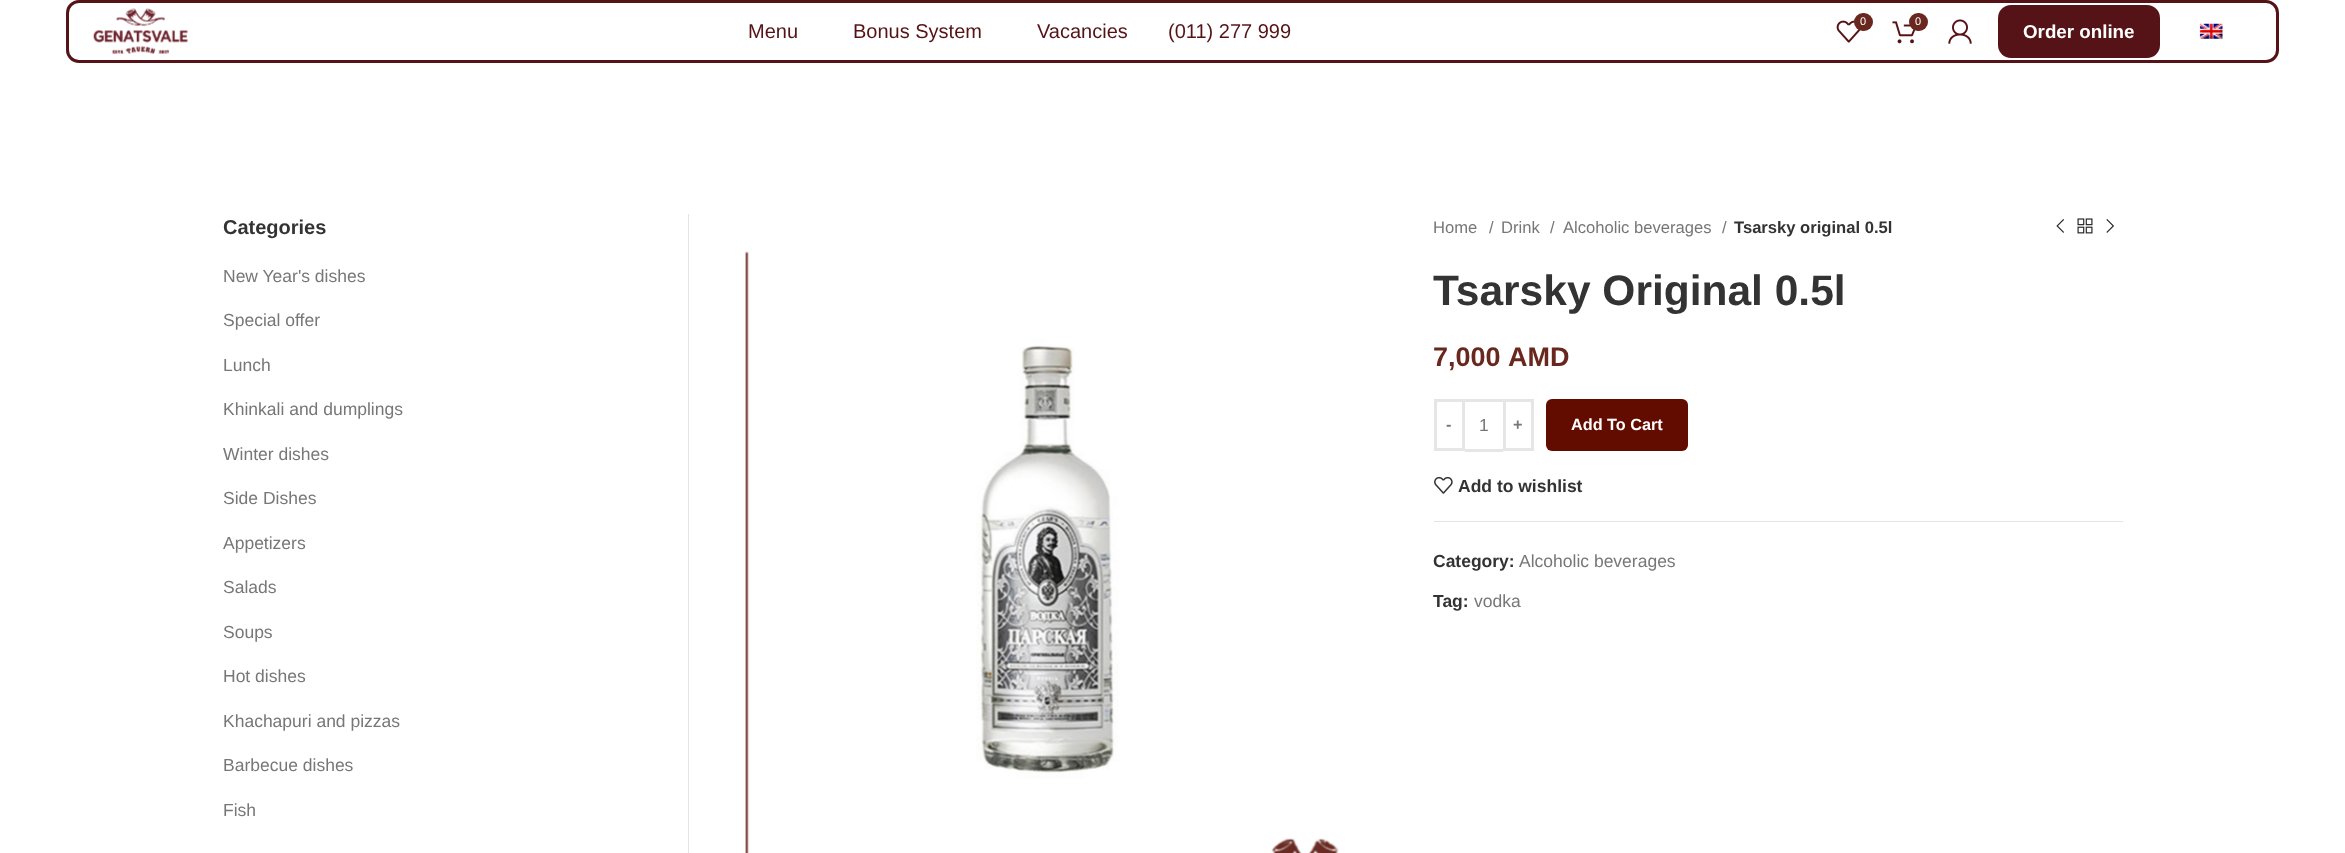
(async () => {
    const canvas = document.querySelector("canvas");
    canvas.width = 2345;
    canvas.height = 853;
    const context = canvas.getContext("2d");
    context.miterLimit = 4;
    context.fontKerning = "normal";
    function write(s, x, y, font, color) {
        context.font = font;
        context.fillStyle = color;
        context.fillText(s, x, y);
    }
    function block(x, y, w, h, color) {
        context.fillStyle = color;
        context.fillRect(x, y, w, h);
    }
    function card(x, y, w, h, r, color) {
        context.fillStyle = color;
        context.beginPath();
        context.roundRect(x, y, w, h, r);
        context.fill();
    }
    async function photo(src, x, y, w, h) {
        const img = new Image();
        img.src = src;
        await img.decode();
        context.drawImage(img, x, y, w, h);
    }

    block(0, 0, 2345, 853, "rgb(255, 255, 255)");
    context.beginPath();
    context.roundRect(67.5, 1.5, 2210, 60, 11.5);
    context.strokeStyle = "rgb(85, 19, 23)";
    context.lineWidth = 3;
    context.stroke();
    await photo("media/1.png", 93, 8, 95, 46);
    write("Menu", 748, 38, "20px Liberation Sans", "rgb(85, 19, 23)");
    write("Bonus System", 853, 38, "20px Liberation Sans", "rgb(85, 19, 23)");
    write("Vacancies", 1037, 38, "20px Liberation Sans", "rgb(85, 19, 23)");
    write("(011) 277 999", 1168, 38, "20px Liberation Sans", "rgb(85, 19, 23)");
    await photo("media/2.png", 1836, 20, 25, 23);
    card(1854, 13, 19, 18, 9, "rgb(105, 39, 30)");
    write("0", 1860, 25, "11px Liberation Sans", "rgb(255, 255, 255)");
    await photo("media/3.png", 1892, 21, 24, 23);
    card(1909, 13, 19, 18, 9, "rgb(105, 39, 30)");
    write("0", 1915, 25, "11px Liberation Sans", "rgb(255, 255, 255)");
    await photo("media/4.png", 1948, 19, 24, 25);
    card(1998, 5, 162, 53, 13, "rgb(85, 19, 23)");
    write("Order online", 2023, 38, "bold 18.75px Liberation Sans", "rgb(255, 255, 255)");
    await photo("media/5.png", 2199, 23, 24, 16);
    block(688, 214, 1, 639, "rgb(228, 228, 228)");
    write("Categories", 223, 234, "bold 20px Liberation Sans", "rgb(51, 51, 51)");
    write("New Year's dishes", 223, 282, "17.5px Liberation Sans", "rgb(119, 119, 119)");
    write("Special offer", 223, 326, "17.5px Liberation Sans", "rgb(119, 119, 119)");
    write("Lunch", 223, 371, "17.5px Liberation Sans", "rgb(119, 119, 119)");
    write("Khinkali and dumplings", 223, 415, "17.5px Liberation Sans", "rgb(119, 119, 119)");
    write("Winter dishes", 223, 460, "17.5px Liberation Sans", "rgb(119, 119, 119)");
    write("Side Dishes", 223, 504, "17.5px Liberation Sans", "rgb(119, 119, 119)");
    write("Appetizers", 223, 549, "17.5px Liberation Sans", "rgb(119, 119, 119)");
    write("Salads", 223, 593, "17.5px Liberation Sans", "rgb(119, 119, 119)");
    write("Soups", 223, 638, "17.5px Liberation Sans", "rgb(119, 119, 119)");
    write("Hot dishes", 223, 682, "17.5px Liberation Sans", "rgb(119, 119, 119)");
    write("Khachapuri and pizzas", 223, 727, "17.5px Liberation Sans", "rgb(119, 119, 119)");
    write("Barbecue dishes", 223, 771, "17.5px Liberation Sans", "rgb(119, 119, 119)");
    write("Fish", 223, 816, "17.5px Liberation Sans", "rgb(119, 119, 119)");
    await photo("media/6.png", 745, 251, 594, 602);
    write("Home", 1433, 233, "16.6px Liberation Sans", "rgb(119, 119, 119)");
    write("/", 1489, 233, "16.6px Liberation Sans", "rgb(119, 119, 119)");
    write("Drink", 1501, 233, "16.6px Liberation Sans", "rgb(119, 119, 119)");
    write("/", 1550, 233, "16.6px Liberation Sans", "rgb(119, 119, 119)");
    write("Alcoholic beverages", 1563, 233, "16.6px Liberation Sans", "rgb(119, 119, 119)");
    write("/", 1722, 233, "16.6px Liberation Sans", "rgb(119, 119, 119)");
    write("Tsarsky original 0.5l", 1734, 233, "bold 16.6px Liberation Sans", "rgb(51, 51, 51)");
    await photo("media/7.png", 2056, 219, 8, 14);
    await photo("media/8.png", 2077, 218, 16, 16);
    await photo("media/9.png", 2106, 219, 8, 14);
    write("Tsarsky Original 0.5l", 1433, 305, "bold 42.5px Liberation Sans", "rgb(51, 51, 51)");
    write("7,000", 1433, 366, "bold 27px Liberation Sans", "rgb(105, 39, 30)");
    write("AMD", 1508, 366, "bold 27px Liberation Sans", "rgb(105, 39, 30)");
    context.strokeStyle = "rgb(230, 230, 230)";
    context.strokeRect(1435.5, 400.5, 28, 49);
    write("-", 1446, 430, "bold 16.25px Liberation Sans", "rgb(119, 119, 119)");
    block(1465, 399, 38, 3, "rgb(230, 230, 230)");
    block(1465, 449, 38, 3, "rgb(230, 230, 230)");
    write("1", 1479, 431, "17.5px Liberation Sans", "rgb(119, 119, 119)");
    context.strokeRect(1504.5, 400.5, 28, 49);
    write("+", 1513, 430, "bold 16.25px Liberation Sans", "rgb(119, 119, 119)");
    card(1546, 399, 142, 52, 6, "rgb(98, 12, 0)");
    write("Add To Cart", 1571, 430, "bold 16.25px Liberation Sans", "rgb(255, 255, 255)");
    await photo("media/10.png", 1434, 476, 19, 18);
    write("Add to wishlist", 1458, 492, "bold 17.5px Liberation Sans", "rgb(51, 51, 51)");
    block(1434, 521, 689, 1, "rgb(228, 228, 228)");
    write("Category:", 1433, 567, "bold 17.5px Liberation Sans", "rgb(51, 51, 51)");
    write("Alcoholic beverages", 1519, 567, "17.5px Liberation Sans", "rgb(119, 119, 119)");
    write("Tag:", 1433, 607, "bold 17.5px Liberation Sans", "rgb(51, 51, 51)");
    write("vodka", 1474, 607, "17.5px Liberation Sans", "rgb(119, 119, 119)");
})();
